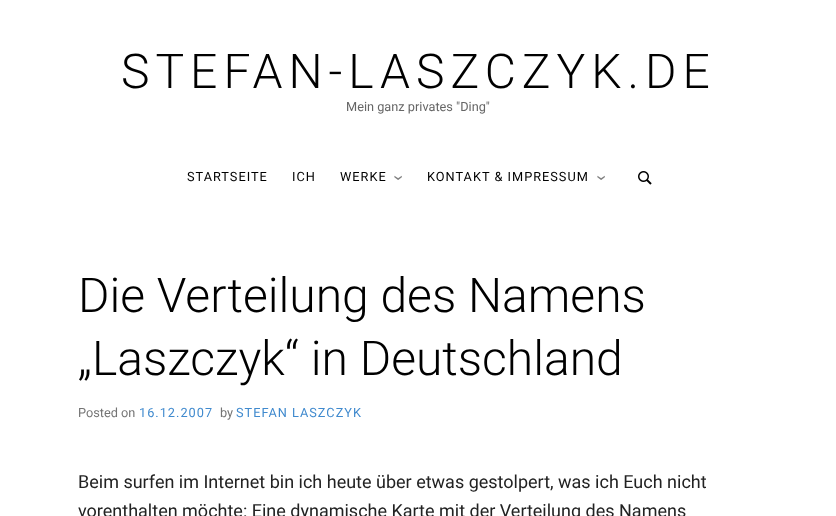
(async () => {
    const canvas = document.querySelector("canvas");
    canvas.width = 836;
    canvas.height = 516;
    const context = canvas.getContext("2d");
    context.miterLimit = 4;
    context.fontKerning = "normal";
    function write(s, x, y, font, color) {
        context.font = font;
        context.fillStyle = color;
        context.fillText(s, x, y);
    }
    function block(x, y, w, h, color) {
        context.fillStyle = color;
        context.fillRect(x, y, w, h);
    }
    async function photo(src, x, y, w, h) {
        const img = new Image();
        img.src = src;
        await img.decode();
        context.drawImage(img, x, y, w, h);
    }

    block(0, 0, 836, 516, "rgb(255, 255, 255)");
    context.letterSpacing = "6px";
    write("STEFAN-LASZCZYK.DE", 121, 88, "300 48px Roboto", "rgb(0, 0, 0)");
    context.letterSpacing = "0px";
    write("Mein ganz privates \"Ding\"", 346, 111, "12.75px Roboto", "rgb(102, 102, 102)");
    context.letterSpacing = "1px";
    write("STARTSEITE", 187, 181, "12.75px Roboto", "rgb(0, 0, 0)");
    write("ICH", 292, 181, "12.75px Roboto", "rgb(0, 0, 0)");
    write("WERKE", 340, 181, "12.75px Roboto", "rgb(0, 0, 0)");
    context.font = "19px Roboto";
    context.fillStyle = "rgb(128, 128, 128)";
    context.save();
    context.translate(393, 175);
    context.rotate(90 * Math.PI / 180);
    context.fillText("›", 0, 0);
    context.restore();
    write("KONTAKT & IMPRESSUM", 427, 181, "12.75px Roboto", "rgb(0, 0, 0)");
    context.font = "19px Roboto";
    context.fillStyle = "rgb(128, 128, 128)";
    context.save();
    context.translate(596, 175);
    context.rotate(90 * Math.PI / 180);
    context.fillText("›", 0, 0);
    context.restore();
    await photo("media/1.png", 638, 171, 14, 14);
    context.letterSpacing = "0px";
    write("Die Verteilung des Namens", 78, 312, "300 48px Roboto", "rgb(0, 0, 0)");
    write("„Laszczyk“ in Deutschland", 78, 375, "300 48px Roboto", "rgb(0, 0, 0)");
    write("Posted on", 78, 417, "12.75px Roboto", "rgb(116, 116, 116)");
    context.letterSpacing = "1px";
    write("16.12.2007", 139, 417, "12.75px Roboto", "rgb(64, 138, 206)");
    context.letterSpacing = "0px";
    write("by", 220, 417, "12.75px Roboto", "rgb(116, 116, 116)");
    context.letterSpacing = "1px";
    write("STEFAN LASZCZYK", 236, 417, "12.75px Roboto", "rgb(64, 138, 206)");
    context.letterSpacing = "0px";
    write("Beim surfen im Internet bin ich heute über etwas gestolpert, was ich Euch nicht", 78, 488, "18px Roboto", "rgb(34, 34, 34)");
    write("vorenthalten möchte: Eine dynamische Karte mit der Verteilung des Namens", 78, 517, "18px Roboto", "rgb(34, 34, 34)");
})();
